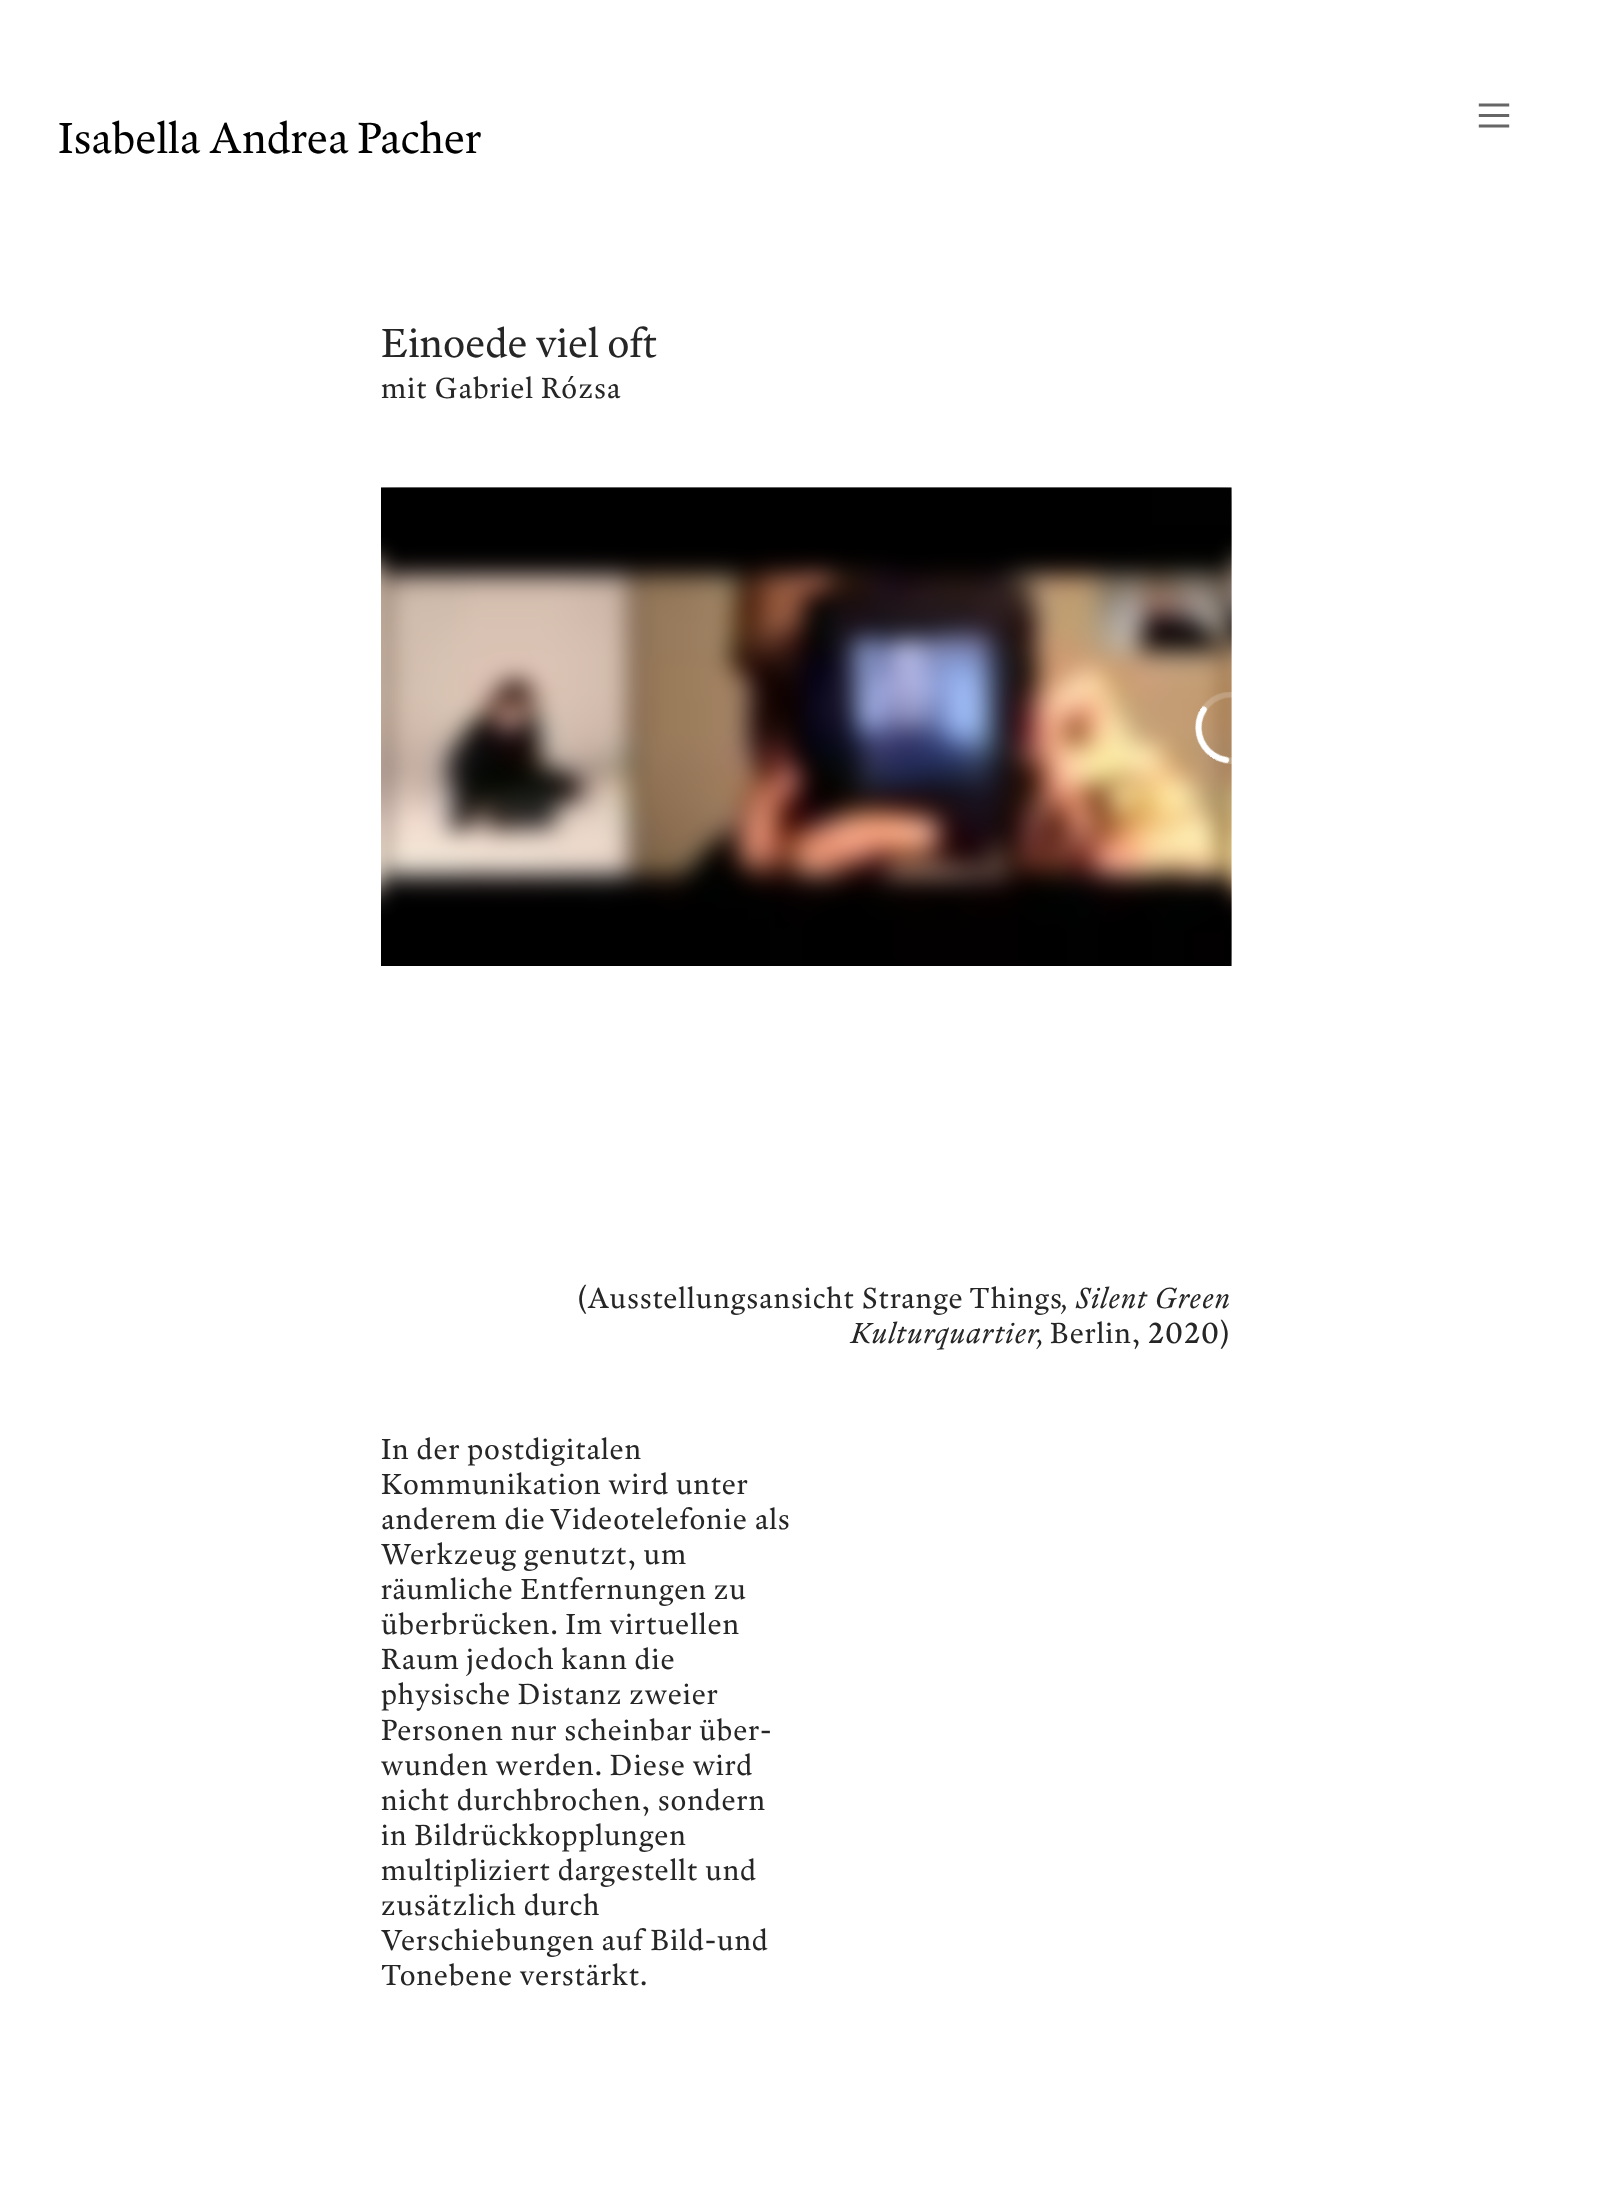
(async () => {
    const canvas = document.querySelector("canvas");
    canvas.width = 1611;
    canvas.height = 2192;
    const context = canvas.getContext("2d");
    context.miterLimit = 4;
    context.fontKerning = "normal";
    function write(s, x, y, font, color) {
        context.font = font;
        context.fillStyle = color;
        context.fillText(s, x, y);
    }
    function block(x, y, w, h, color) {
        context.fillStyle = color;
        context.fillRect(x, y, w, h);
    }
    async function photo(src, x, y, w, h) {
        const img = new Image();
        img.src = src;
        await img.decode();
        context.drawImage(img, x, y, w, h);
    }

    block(0, 0, 1611, 2192, "rgb(255, 255, 255)");
    await photo("media/1.png", 1478, 103, 32, 25);
    write("Isabella Andrea Pacher", 58, 153, "43.75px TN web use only", "rgb(0, 0, 0)");
    write("Einoede viel oft", 381, 357, "41px TN web use only", "rgb(38, 38, 38)");
    context.letterSpacing = "0.9px";
    write("mit Gabriel Rózsa", 381, 398, "29.2px TN web use only", "rgb(38, 38, 38)");
    await photo("media/2.png", 381, 487, 851, 479);
    write("(Ausstellungsansicht Strange Things", 577, 1308, "29.2px TN web use only", "rgb(38, 38, 38)");
    write(", Silent Green", 1062, 1308, "italic 29.2px TN web use only", "rgb(38, 38, 38)");
    write("Kulturquartier,", 851, 1343, "italic 29.2px TN web use only", "rgb(38, 38, 38)");
    write("Berlin, 2020)", 1050, 1343, "29.2px TN web use only", "rgb(38, 38, 38)");
    write("In der postdigitalen", 381, 1459, "29.2px TN web use only", "rgb(38, 38, 38)");
    write("Kommunikation wird unter", 381, 1494, "29.2px TN web use only", "rgb(38, 38, 38)");
    write("anderem die Videotelefonie als", 381, 1529, "29.2px TN web use only", "rgb(38, 38, 38)");
    write("Werkzeug genutzt, um", 381, 1564, "29.2px TN web use only", "rgb(38, 38, 38)");
    write("räumliche Entfernungen zu", 381, 1599, "29.2px TN web use only", "rgb(38, 38, 38)");
    write("überbrücken. Im virtuellen", 381, 1634, "29.2px TN web use only", "rgb(38, 38, 38)");
    write("Raum jedoch kann die", 381, 1669, "29.2px TN web use only", "rgb(38, 38, 38)");
    write("physische Distanz zweier", 381, 1704, "29.2px TN web use only", "rgb(38, 38, 38)");
    write("Personen nur scheinbar über-", 381, 1740, "29.2px TN web use only", "rgb(38, 38, 38)");
    write("wunden werden. Diese wird", 381, 1775, "29.2px TN web use only", "rgb(38, 38, 38)");
    write("nicht durchbrochen, sondern", 381, 1810, "29.2px TN web use only", "rgb(38, 38, 38)");
    write("in Bildrückkopplungen", 381, 1845, "29.2px TN web use only", "rgb(38, 38, 38)");
    write("multipliziert dargestellt und", 381, 1880, "29.2px TN web use only", "rgb(38, 38, 38)");
    write("zusätzlich durch", 381, 1915, "29.2px TN web use only", "rgb(38, 38, 38)");
    write("Verschiebungen auf Bild-und", 381, 1950, "29.2px TN web use only", "rgb(38, 38, 38)");
    write("Tonebene verstärkt.", 381, 1985, "29.2px TN web use only", "rgb(38, 38, 38)");
})();
